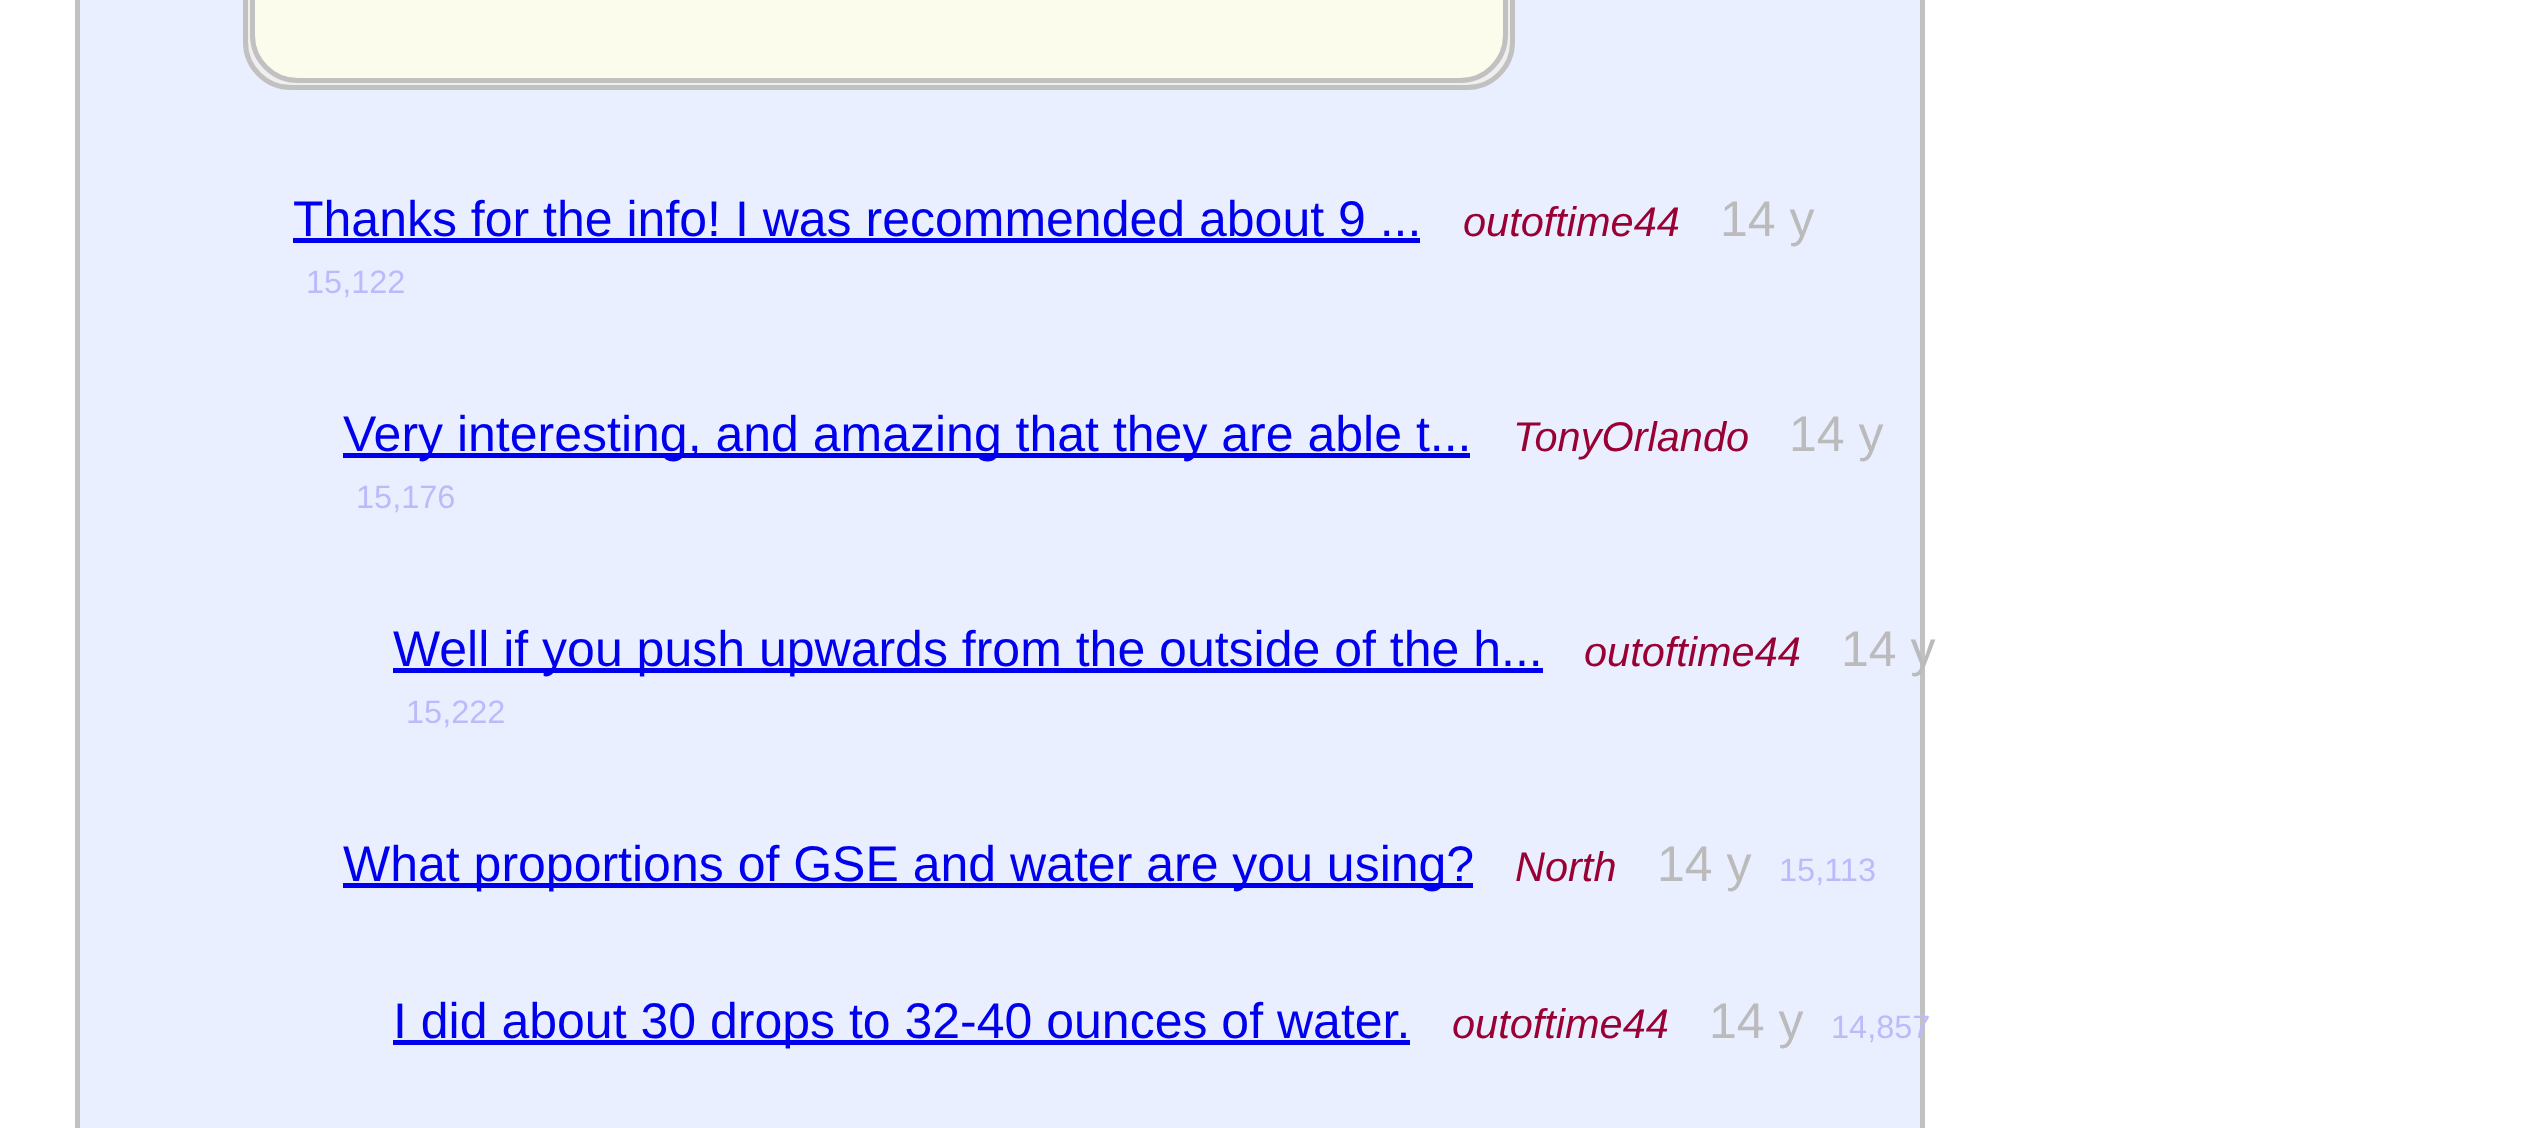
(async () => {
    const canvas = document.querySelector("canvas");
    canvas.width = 2536;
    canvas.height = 1128;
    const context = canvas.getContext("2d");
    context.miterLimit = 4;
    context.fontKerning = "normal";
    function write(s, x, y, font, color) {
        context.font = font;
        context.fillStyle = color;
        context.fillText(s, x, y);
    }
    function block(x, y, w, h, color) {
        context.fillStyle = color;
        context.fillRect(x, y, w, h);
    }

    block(0, 0, 2536, 1128, "rgb(255, 255, 255)");
    context.fillStyle = "rgb(234, 239, 255)";
    context.beginPath();
    context.rect(77.5, -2.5, 1845, 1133);
    context.fill();
    context.strokeStyle = "rgb(193, 193, 193)";
    context.lineWidth = 5;
    context.stroke();
    context.fillStyle = "rgb(239, 239, 239)";
    context.beginPath();
    context.roundRect(245.5, -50.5, 1267, 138, 45.5);
    context.fill();
    context.stroke();
    context.fillStyle = "rgb(252, 252, 236)";
    context.beginPath();
    context.roundRect(252.5, -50.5, 1253, 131, 45.5);
    context.fill();
    context.stroke();
    write("Thanks for the info! I was recommended about 9 ...", 293, 236, "50px Liberation Sans", "rgb(0, 0, 238)");
    block(293, 238, 1127, 5, "rgb(0, 0, 238)");
    write("outoftime44", 1463, 236, "italic 41.5px Liberation Sans", "rgb(153, 0, 51)");
    write("14 y", 1720, 236, "50px Liberation Sans", "rgb(187, 187, 187)");
    write("15,122", 306, 293, "32.5px Liberation Sans", "rgb(187, 187, 251)");
    block(343, 453, 1127, 5, "rgb(0, 0, 238)");
    write("Very interesting, and amazing that they are able t...", 343, 451, "50px Liberation Sans", "rgb(0, 0, 238)");
    write("TonyOrlando", 1513, 451, "italic 41.5px Liberation Sans", "rgb(153, 0, 51)");
    write("14 y", 1789, 451, "50px Liberation Sans", "rgb(187, 187, 187)");
    write("15,176", 356, 508, "32.5px Liberation Sans", "rgb(187, 187, 251)");
    block(393, 668, 1150, 5, "rgb(0, 0, 238)");
    write("Well if you push upwards from the outside of the h...", 393, 666, "50px Liberation Sans", "rgb(0, 0, 238)");
    write("outoftime44", 1584, 666, "italic 41.5px Liberation Sans", "rgb(153, 0, 51)");
    write("14 y", 1841, 666, "50px Liberation Sans", "rgb(187, 187, 187)");
    write("15,222", 406, 723, "32.5px Liberation Sans", "rgb(187, 187, 251)");
    block(343, 883, 1130, 5, "rgb(0, 0, 238)");
    write("What proportions of GSE and water are you using?", 343, 881, "50px Liberation Sans", "rgb(0, 0, 238)");
    write("North", 1515, 881, "italic 41.5px Liberation Sans", "rgb(153, 0, 51)");
    write("14 y", 1657, 881, "50px Liberation Sans", "rgb(187, 187, 187)");
    write("15,113", 1779, 881, "32.5px Liberation Sans", "rgb(187, 187, 251)");
    block(393, 1040, 1017, 5, "rgb(0, 0, 238)");
    write("I did about 30 drops to 32-40 ounces of water.", 393, 1038, "50px Liberation Sans", "rgb(0, 0, 238)");
    write("outoftime44", 1452, 1038, "italic 41.5px Liberation Sans", "rgb(153, 0, 51)");
    write("14 y", 1709, 1038, "50px Liberation Sans", "rgb(187, 187, 187)");
    write("14,857", 1831, 1038, "32.5px Liberation Sans", "rgb(187, 187, 251)");
})();
